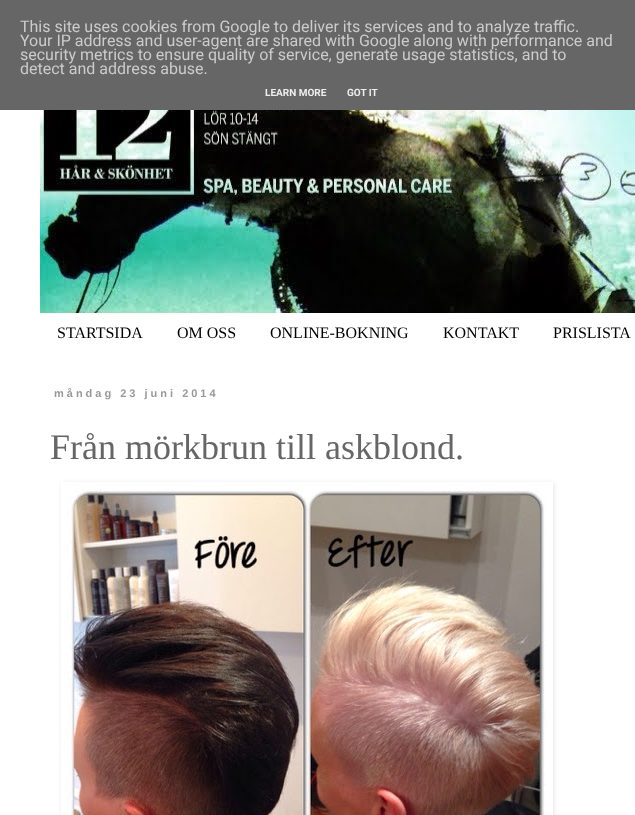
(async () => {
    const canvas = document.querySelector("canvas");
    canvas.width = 635;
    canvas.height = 815;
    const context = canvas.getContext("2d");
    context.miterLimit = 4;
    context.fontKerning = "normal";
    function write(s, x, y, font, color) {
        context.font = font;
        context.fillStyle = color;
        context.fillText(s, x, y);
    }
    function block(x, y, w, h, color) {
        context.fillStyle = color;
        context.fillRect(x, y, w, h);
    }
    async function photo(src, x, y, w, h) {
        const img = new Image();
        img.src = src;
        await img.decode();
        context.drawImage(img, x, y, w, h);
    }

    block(0, 0, 635, 815, "rgb(255, 255, 255)");
    block(0, 0, 635, 110, "rgb(102, 102, 102)");
    write("This site uses cookies from Google to deliver its services and to analyze traffic.", 20, 32, "16px Roboto", "rgb(204, 204, 204)");
    write("Your IP address and user-agent are shared with Google along with performance and", 20, 46, "16px Roboto", "rgb(204, 204, 204)");
    write("security metrics to ensure quality of service, generate usage statistics, and to", 20, 60, "16px Roboto", "rgb(204, 204, 204)");
    write("detect and address abuse.", 20, 74, "16px Roboto", "rgb(204, 204, 204)");
    write("LEARN MORE", 265, 96, "bold 10px Roboto", "rgb(238, 238, 238)");
    write("GOT IT", 347, 96, "bold 10px Roboto", "rgb(238, 238, 238)");
    await photo("media/1.png", 40, 110, 595, 203);
    write("STARTSIDA", 57, 338, "16px Liberation Serif", "rgb(0, 0, 0)");
    write("OM OSS", 177, 338, "16px Liberation Serif", "rgb(0, 0, 0)");
    write("ONLINE-BOKNING", 270, 338, "16px Liberation Serif", "rgb(0, 0, 0)");
    write("KONTAKT", 443, 338, "16px Liberation Serif", "rgb(0, 0, 0)");
    write("PRISLISTA", 553, 338, "16px Liberation Serif", "rgb(0, 0, 0)");
    context.letterSpacing = "3px";
    write("måndag 23 juni 2014", 54, 397, "bold 11px Liberation Sans", "rgb(153, 153, 153)");
    context.letterSpacing = "0px";
    write("Från mörkbrun till askblond.", 50, 459, "36px Liberation Serif", "rgb(102, 102, 102)");
    context.save();
    context.beginPath();
    context.moveTo(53, 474);
    context.lineTo(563, 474);
    context.lineTo(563, 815);
    context.lineTo(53, 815);
    context.closePath();
    context.moveTo(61, 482);
    context.lineTo(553, 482);
    context.lineTo(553, 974);
    context.lineTo(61, 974);
    context.closePath();
    context.clip("evenodd");
    context.fillStyle = "rgba(0, 0, 0, 0.1)";
    context.filter = "blur(2.5px)";
    context.beginPath();
    context.rect(62, 483, 492, 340);
    context.fill();
    context.filter = "none";
    context.restore();
    await photo("media/2.png", 67, 488, 480, 327);
})();
